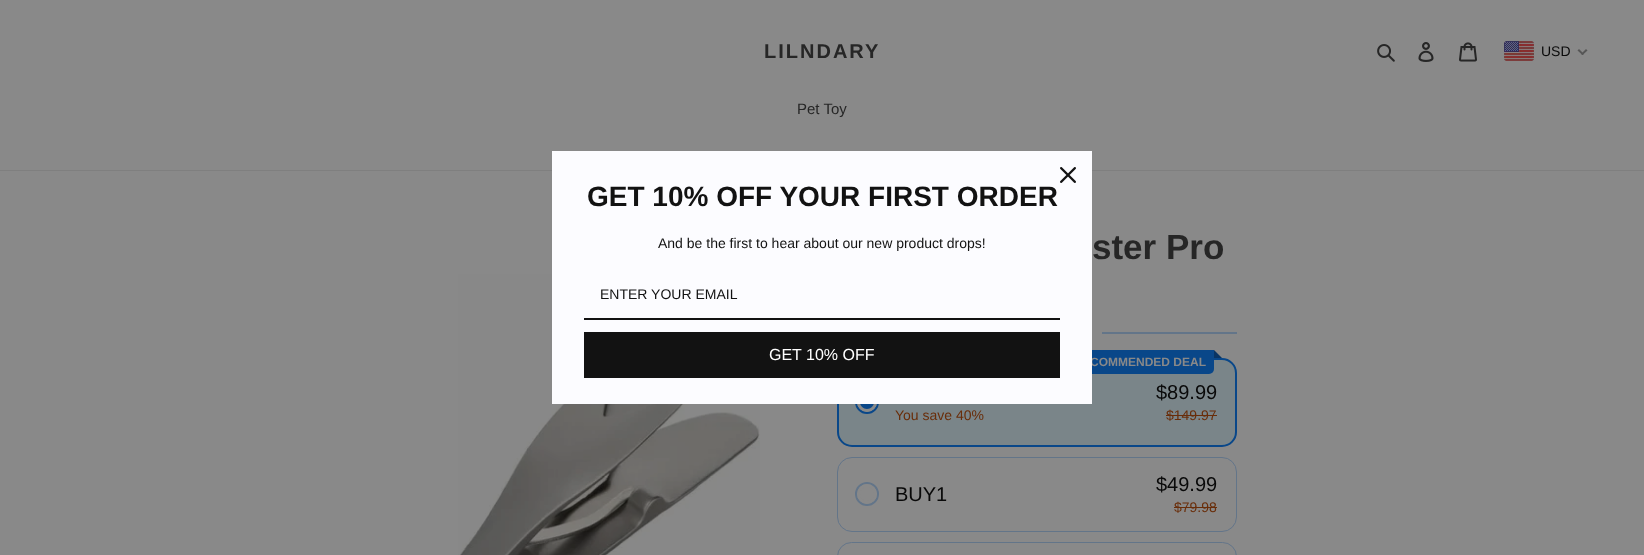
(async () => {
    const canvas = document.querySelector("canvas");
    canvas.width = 1644;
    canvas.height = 555;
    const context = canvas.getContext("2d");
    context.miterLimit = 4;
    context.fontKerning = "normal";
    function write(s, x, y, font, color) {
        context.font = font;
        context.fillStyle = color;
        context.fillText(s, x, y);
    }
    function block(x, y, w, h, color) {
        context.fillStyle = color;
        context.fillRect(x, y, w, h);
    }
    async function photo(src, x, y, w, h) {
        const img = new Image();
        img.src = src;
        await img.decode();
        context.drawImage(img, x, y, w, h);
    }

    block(0, 0, 1644, 555, "rgb(137, 137, 137)");
    context.letterSpacing = "2px";
    write("LILNDARY", 764, 58, "bold 20px Liberation Sans", "rgb(38, 38, 38)");
    await photo("media/1.png", 1377, 44, 18, 18);
    await photo("media/2.png", 1418, 42, 16, 20);
    await photo("media/3.png", 1459, 42, 18, 20);
    await photo("media/4.png", 1504, 41, 30, 20);
    context.letterSpacing = "0px";
    write("USD", 1541, 56, "14px Liberation Sans", "rgb(9, 9, 9)");
    context.fillStyle = "rgb(86, 86, 86)";
    context.beginPath();
    context.moveTo(1586, 49);
    context.lineTo(1587.5, 50.5);
    context.lineTo(1582.5, 55);
    context.lineTo(1581, 54);
    context.closePath();
    context.fill();
    context.beginPath();
    context.moveTo(1579, 49);
    context.lineTo(1584, 54);
    context.lineTo(1582.5, 55);
    context.lineTo(1577.5, 50.5);
    context.closePath();
    context.fill();
    block(0, 170, 1644, 1, "rgb(127, 127, 127)");
    write("Pet Toy", 797, 114, "15px Liberation Sans", "rgb(38, 38, 38)");
    await photo("media/6.png", 458, 274, 302, 281);
    context.fillStyle = "rgb(122, 133, 137)";
    context.beginPath();
    context.roundRect(838, 359, 398, 87, 14);
    context.fill();
    context.strokeStyle = "rgb(9, 71, 137)";
    context.lineWidth = 2;
    context.stroke();
    context.fillStyle = "rgb(9, 71, 137)";
    context.beginPath();
    context.roundRect(1065, 350, 149, 24, [0, 0, 5, 5]);
    context.fill();
    write("COMMENDED DEAL", 1090, 366, "bold 12px Liberation Sans", "rgb(137, 137, 137)");
    context.beginPath();
    context.arc(867, 402, 11, 0, Math.PI * 2);
    context.stroke();
    context.fillStyle = "rgb(9, 71, 137)";
    context.beginPath();
    context.arc(867, 402, 8.5, 0, Math.PI * 2);
    context.fill();
    context.strokeStyle = "rgb(137, 137, 137)";
    context.lineWidth = 3;
    context.stroke();
    block(552, 151, 540, 253, "rgb(252, 252, 255)");
    await photo("media/5.png", 1060, 167, 16, 16);
    write("GET 10% OFF YOUR FIRST ORDER", 587, 206, "bold 28px Liberation Sans", "rgb(18, 18, 18)");
    write("And be the first to hear about our new product drops!", 658, 248, "14px Liberation Sans", "rgb(18, 18, 18)");
    block(584, 318, 476, 2, "rgb(18, 18, 18)");
    write("ENTER YOUR EMAIL", 600, 299, "14px Liberation Sans", "rgb(18, 18, 18)");
    block(584, 332, 476, 46, "rgb(18, 18, 18)");
    write("GET 10% OFF", 769, 360, "16px Liberation Sans", "rgb(255, 255, 255)");
    write("ster Pro", 1092, 259, "bold 35px Liberation Sans", "rgb(38, 38, 38)");
    block(1102, 332, 135, 2, "rgb(99, 117, 137)");
    context.fillStyle = "rgb(9, 52, 99)";
    context.beginPath();
    context.moveTo(1222, 358);
    context.lineTo(1214, 358);
    context.lineTo(1214, 350);
    context.closePath();
    context.fill();
    write("You save 40%", 895, 420, "14px Liberation Sans", "rgb(105, 45, 9)");
    write("$89.99", 1156, 399, "20px Liberation Sans", "rgb(9, 9, 9)");
    write("$149.97", 1166, 420, "14px Liberation Sans", "rgb(105, 45, 9)");
    block(1166, 415, 51, 1, "rgb(105, 45, 9)");
    context.beginPath();
    context.roundRect(837.5, 457.5, 399, 74, 14.5);
    context.strokeStyle = "rgb(99, 117, 137)";
    context.lineWidth = 1;
    context.stroke();
    context.beginPath();
    context.arc(867, 494, 11, 0, Math.PI * 2);
    context.lineWidth = 2;
    context.stroke();
    context.fillStyle = "rgb(137, 137, 137)";
    context.beginPath();
    context.arc(867, 494, 8.5, 0, Math.PI * 2);
    context.fill();
    context.strokeStyle = "rgb(137, 137, 137)";
    context.lineWidth = 3;
    context.stroke();
    write("BUY1", 895, 501, "20px Liberation Sans", "rgb(9, 9, 9)");
    write("$49.99", 1156, 491, "20px Liberation Sans", "rgb(9, 9, 9)");
    write("$79.98", 1174, 512, "14px Liberation Sans", "rgb(105, 45, 9)");
    block(1174, 507, 43, 1, "rgb(105, 45, 9)");
    context.beginPath();
    context.roundRect(837.5, 542.5, 399, 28, 14.5);
    context.strokeStyle = "rgb(99, 117, 137)";
    context.lineWidth = 1;
    context.stroke();
})();
